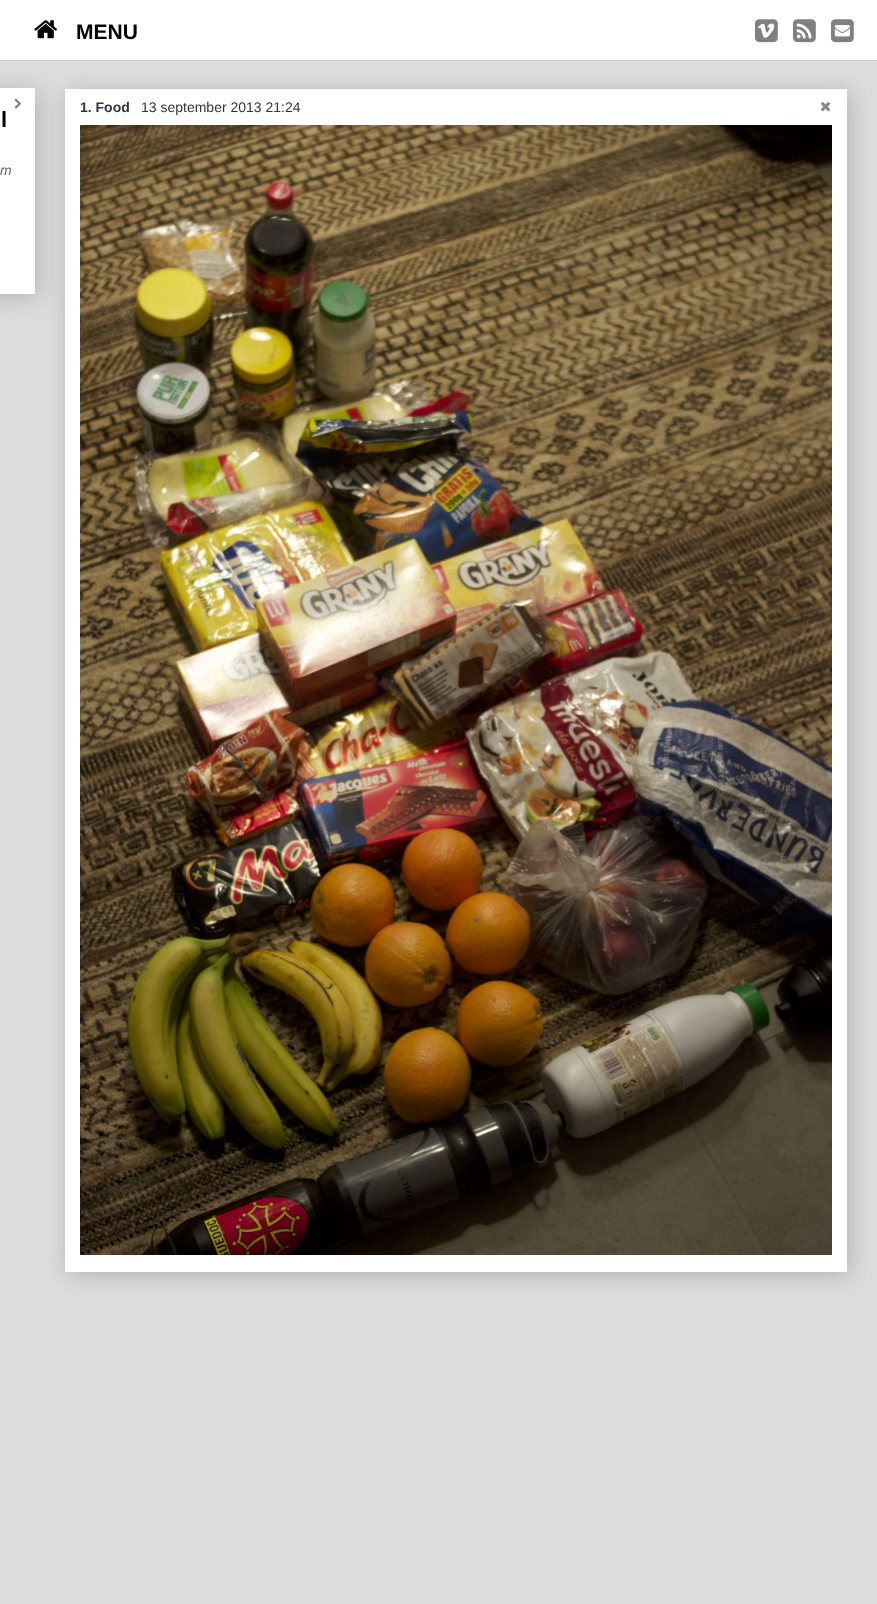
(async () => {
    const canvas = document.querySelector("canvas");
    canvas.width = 877;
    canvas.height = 1604;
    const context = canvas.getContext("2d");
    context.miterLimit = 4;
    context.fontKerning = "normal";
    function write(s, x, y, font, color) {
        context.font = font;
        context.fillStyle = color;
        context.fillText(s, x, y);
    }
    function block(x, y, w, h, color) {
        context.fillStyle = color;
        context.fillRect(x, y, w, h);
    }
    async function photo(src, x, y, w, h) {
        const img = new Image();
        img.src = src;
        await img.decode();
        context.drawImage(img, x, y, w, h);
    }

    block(0, 0, 877, 1604, "rgb(255, 255, 255)");
    await photo("media/1.png", 34, 20, 23, 19);
    write("MENU", 76, 39, "bold 21px Liberation Sans", "rgb(0, 0, 0)");
    await photo("media/2.png", 755, 19, 23, 24);
    await photo("media/3.png", 793, 19, 23, 24);
    await photo("media/4.png", 831, 19, 23, 24);
    block(0, 60, 877, 1, "rgb(204, 204, 204)");
    block(0, 61, 877, 1543, "rgb(221, 221, 221)");
    context.fillStyle = "rgba(0, 0, 0, 0.2)";
    context.filter = "blur(12.5px)";
    context.beginPath();
    context.rect(-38, 91, 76, 206);
    context.fill();
    context.filter = "none";
    block(0, 88, 35, 206, "rgb(255, 255, 255)");
    context.fillStyle = "rgba(0, 0, 0, 0.2)";
    context.filter = "blur(12.5px)";
    context.beginPath();
    context.rect(68, 92, 782, 1183);
    context.fill();
    context.filter = "none";
    block(65, 89, 782, 1183, "rgb(255, 255, 255)");
    write("1. Food", 80, 112, "bold 14px Liberation Sans", "rgb(51, 51, 68)");
    write("13 september 2013 21:24", 141, 112, "14px Liberation Sans", "rgb(51, 51, 68)");
    await photo("media/5.png", 820, 102, 11, 10);
    await photo("media/6.png", 80, 125, 752, 1130);
    await photo("media/7.png", 14, 98, 7, 11);
    write("l", 1, 127, "bold 22px Liberation Sans", "rgb(0, 0, 0)");
    write("m", 0, 175, "italic 14px Liberation Sans", "rgb(102, 102, 102)");
})();
